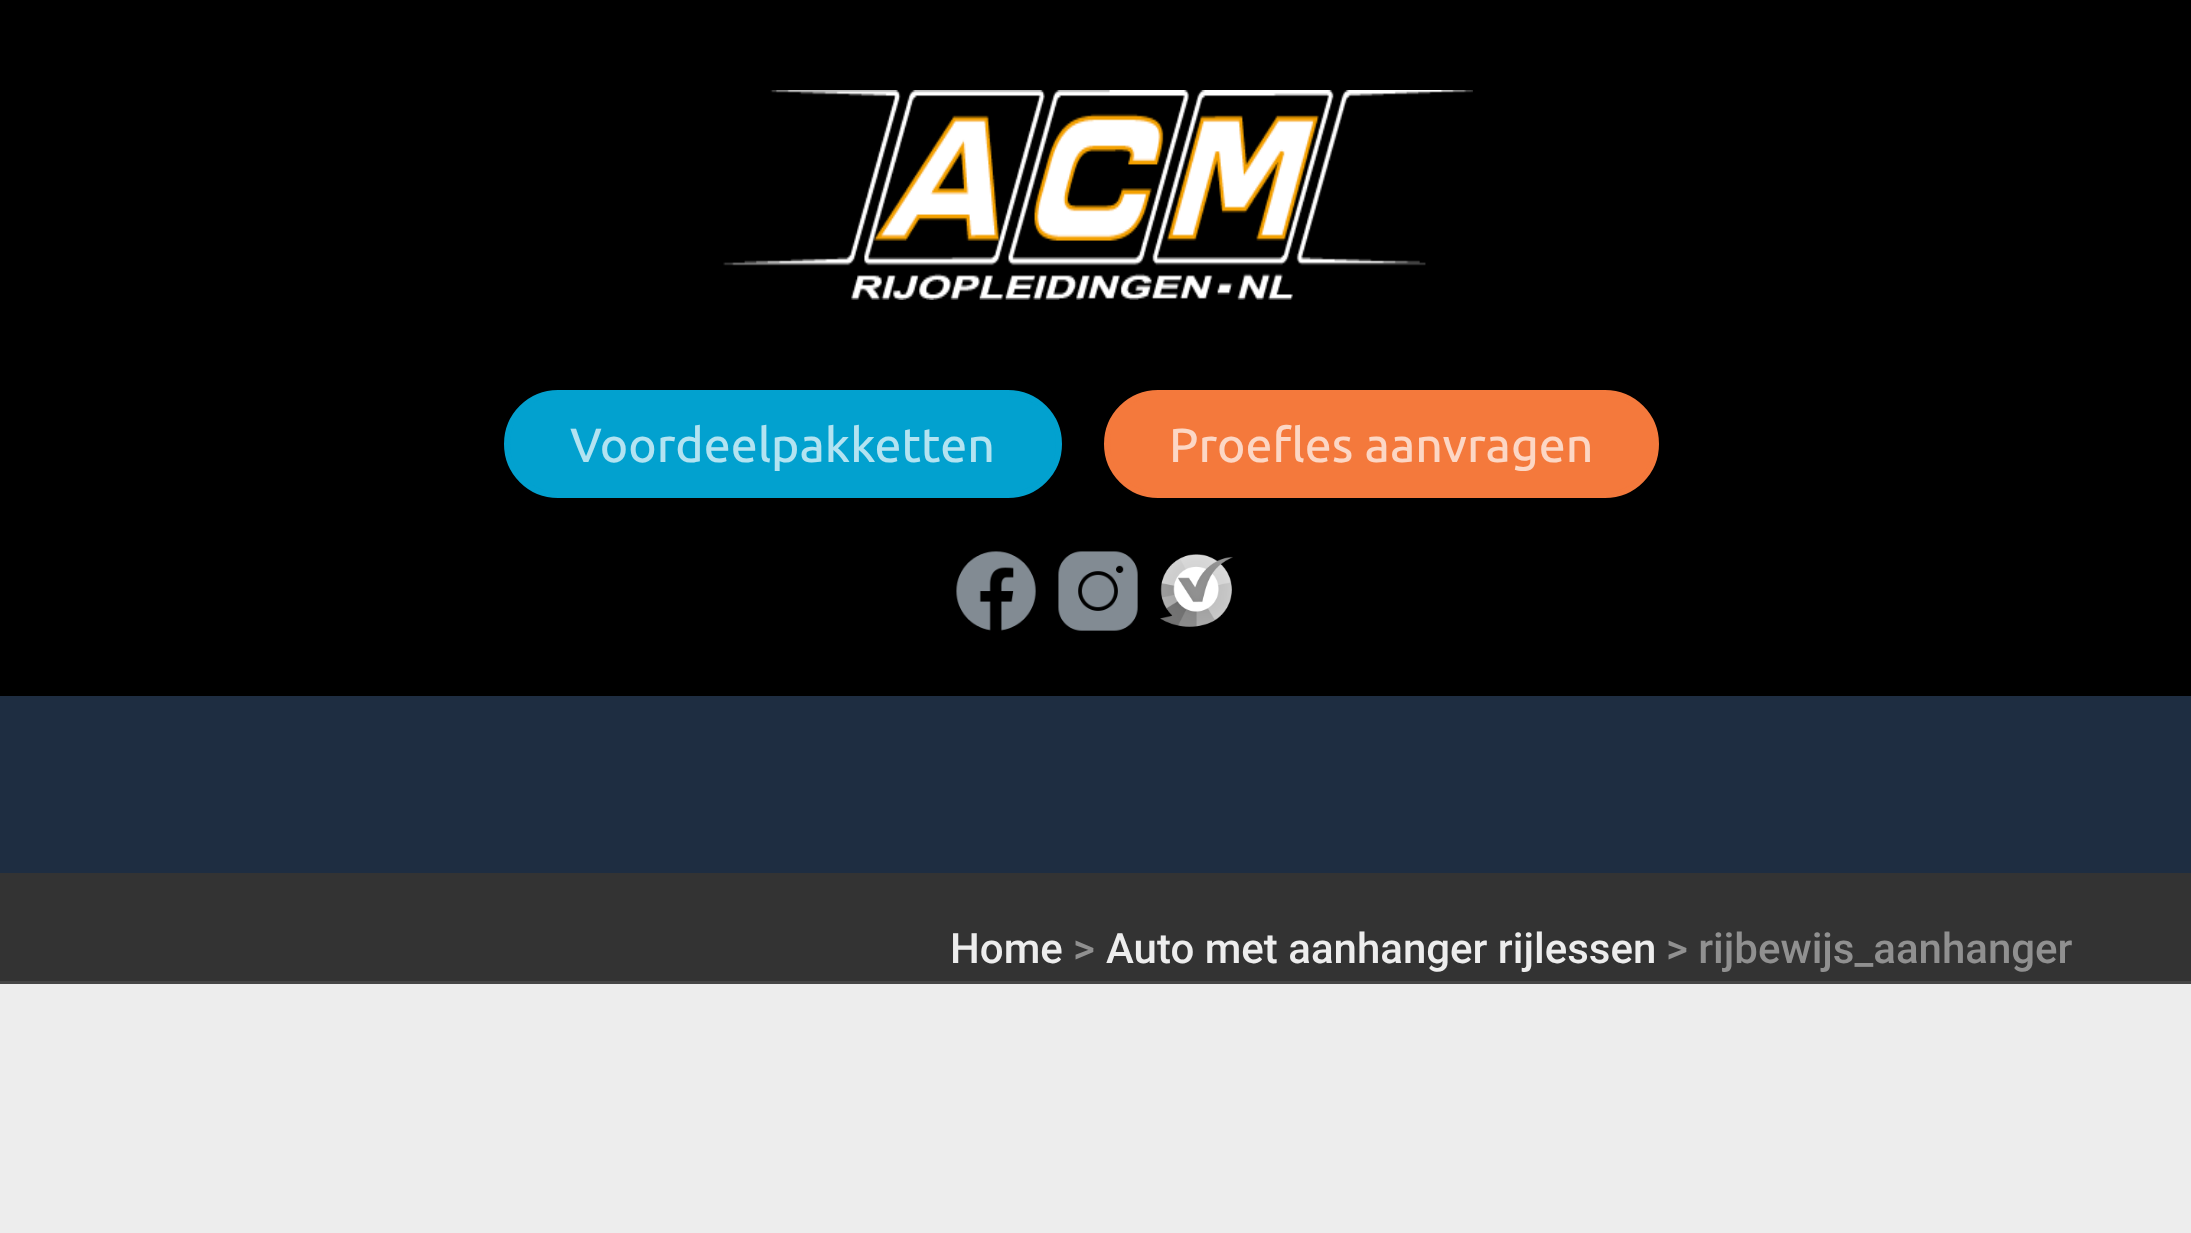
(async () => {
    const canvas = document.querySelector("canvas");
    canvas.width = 2191;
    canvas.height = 1233;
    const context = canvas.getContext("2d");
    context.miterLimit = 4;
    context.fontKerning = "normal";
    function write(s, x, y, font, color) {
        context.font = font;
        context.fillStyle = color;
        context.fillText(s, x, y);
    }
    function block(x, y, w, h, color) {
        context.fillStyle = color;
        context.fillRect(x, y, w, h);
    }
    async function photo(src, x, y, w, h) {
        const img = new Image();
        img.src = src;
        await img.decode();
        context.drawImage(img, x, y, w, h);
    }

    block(0, 0, 2191, 1233, "rgb(51, 51, 51)");
    block(0, 0, 2191, 696, "rgb(0, 0, 0)");
    await photo("media/1.png", 723, 90, 750, 210);
    context.fillStyle = "rgb(2, 161, 207)";
    context.beginPath();
    context.roundRect(507, 393, 552, 102, 51);
    context.fill();
    context.strokeStyle = "rgb(2, 161, 207)";
    context.lineWidth = 6;
    context.stroke();
    write("Voordeelpakketten", 570, 462, "500 48px Ubuntu", "rgb(179, 227, 241)");
    context.fillStyle = "rgb(244, 121, 60)";
    context.beginPath();
    context.roundRect(1107, 393, 549, 102, 51);
    context.fill();
    context.strokeStyle = "rgb(244, 121, 60)";
    context.stroke();
    write("Proefles aanvragen", 1169, 462, "500 48px Ubuntu", "rgb(252, 215, 197)");
    await photo("media/2.png", 956, 551, 80, 80);
    await photo("media/3.png", 1058, 551, 80, 80);
    await photo("media/4.png", 1160, 554, 73, 73);
    block(0, 696, 2191, 177, "rgb(30, 45, 65)");
    block(0, 981, 2191, 3, "rgb(70, 70, 70)");
    write("Home", 950, 963, "500 42px Roboto", "rgb(237, 237, 237)");
    write(">", 1073, 963, "500 42px Roboto", "rgb(144, 144, 144)");
    write("Auto met aanhanger rijlessen", 1106, 963, "500 42px Roboto", "rgb(237, 237, 237)");
    write("> rijbewijs_aanhanger", 1666, 963, "500 42px Roboto", "rgb(144, 144, 144)");
    block(0, 984, 2191, 249, "rgb(237, 237, 237)");
})();
